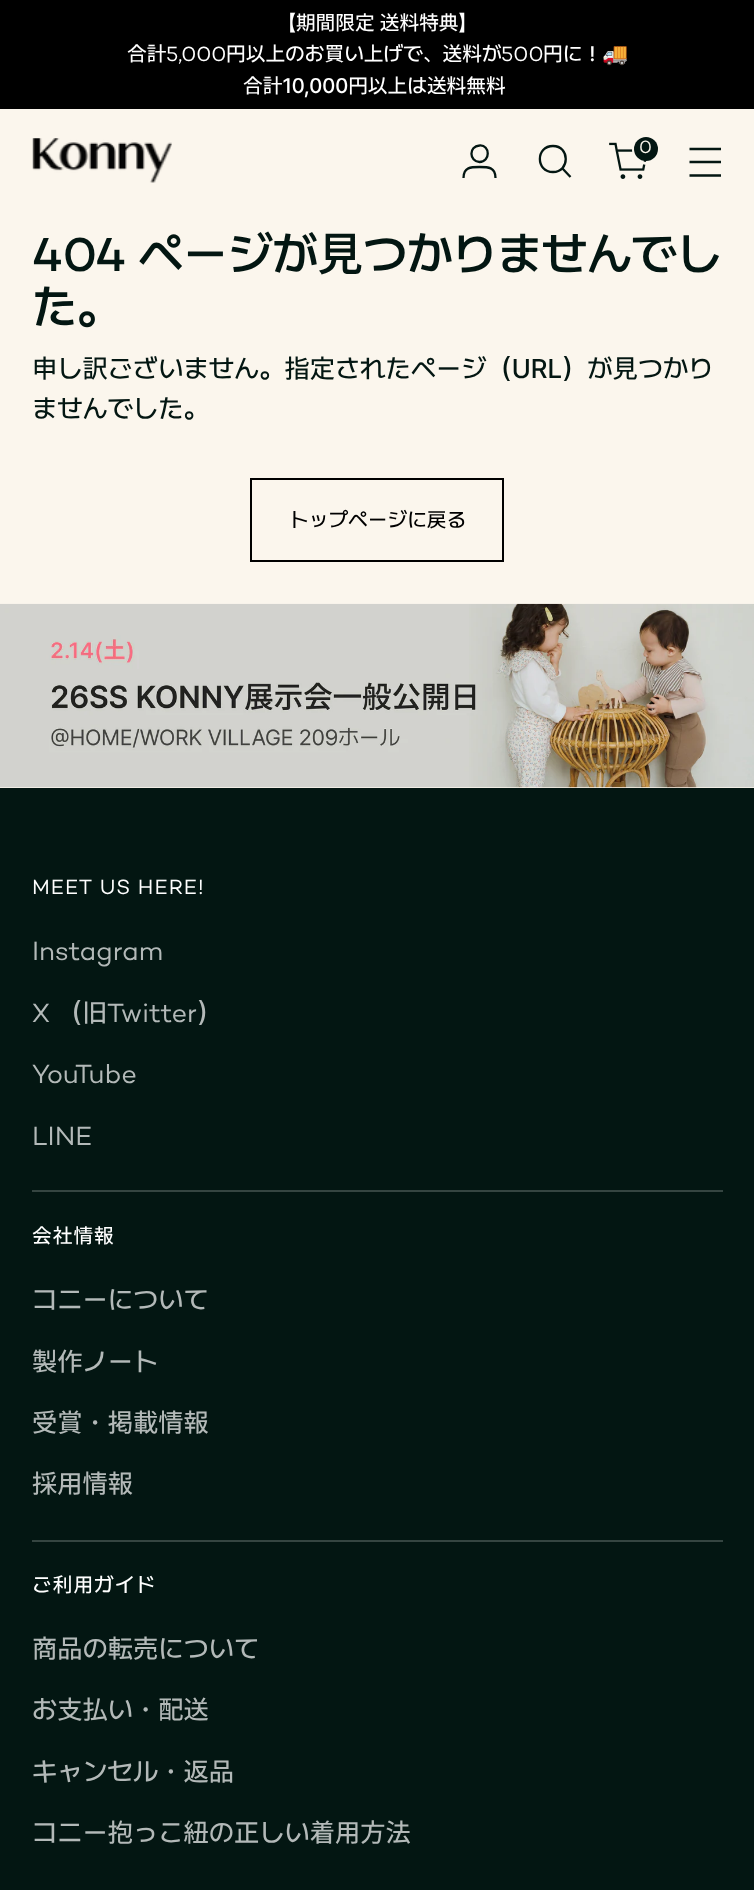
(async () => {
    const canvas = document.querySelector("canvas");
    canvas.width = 754;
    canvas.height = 1890;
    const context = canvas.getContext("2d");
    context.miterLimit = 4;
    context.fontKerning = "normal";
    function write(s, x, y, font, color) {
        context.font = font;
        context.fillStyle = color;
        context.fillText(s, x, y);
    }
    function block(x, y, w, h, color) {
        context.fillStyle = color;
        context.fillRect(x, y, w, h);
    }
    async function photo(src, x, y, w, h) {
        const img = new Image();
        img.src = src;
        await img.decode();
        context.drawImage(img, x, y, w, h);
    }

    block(0, 0, 754, 1890, "rgb(251, 246, 237)");
    block(0, 0, 754, 109, "rgb(0, 0, 0)");
    write("【期間限定 送料特典】", 288, 30, "500 21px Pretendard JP", "rgb(255, 255, 255)");
    write("合計", 127, 61, "500 21px Pretendard JP", "rgb(255, 255, 255)");
    write("5,000", 166, 61, "21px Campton", "rgb(255, 255, 255)");
    write("円以上のお買い上げで、送料が", 226, 61, "500 21px Pretendard JP", "rgb(255, 255, 255)");
    write("500", 501, 61, "21px Campton", "rgb(255, 255, 255)");
    write("円に！", 543, 61, "500 21px Pretendard JP", "rgb(255, 255, 255)");
    write("🚚", 602, 61, "21px Noto Color Emoji", "rgb(255, 255, 255)");
    write("合計10,000円以上は送料無料", 243, 93, "500 21px Pretendard JP", "rgb(255, 255, 255)");
    await photo("media/1.png", 32, 138, 140, 45);
    context.beginPath();
    context.moveTo(479.5, 162);
    context.bezierCurveTo(490.5, 162, 490.5, 144.5, 479.5, 145.5);
    context.bezierCurveTo(468.5, 146, 469, 161.5, 479.5, 162);
    context.closePath();
    context.moveTo(463.5, 178);
    context.bezierCurveTo(463.5, 167, 471, 167, 479.5, 167);
    context.bezierCurveTo(488, 167, 495.5, 167, 495.5, 178);
    context.strokeStyle = "rgb(3, 22, 18)";
    context.lineWidth = 2.3;
    context.stroke();
    context.beginPath();
    context.moveTo(553, 172);
    context.bezierCurveTo(570, 172, 570, 146, 553, 146);
    context.bezierCurveTo(535.5, 146, 535.5, 172, 553, 172);
    context.closePath();
    context.lineCap = "round";
    context.stroke();
    context.beginPath();
    context.moveTo(562.5, 168.5);
    context.lineTo(570.5, 177);
    context.lineCap = "butt";
    context.stroke();
    await photo("media/2.png", 609, 142, 38, 37);
    context.beginPath();
    context.arc(647, 150, 13.5, 0, Math.PI * 2);
    context.strokeStyle = "rgb(251, 246, 237)";
    context.lineWidth = 3;
    context.stroke();
    context.fillStyle = "rgb(3, 22, 18)";
    context.beginPath();
    context.arc(646, 149, 12, 0, Math.PI * 2);
    context.fill();
    write("0", 639, 153, "18px Campton", "rgb(251, 246, 237)");
    context.beginPath();
    context.moveTo(689.5, 162);
    context.lineTo(721, 162);
    context.moveTo(689.5, 149);
    context.lineTo(721, 149);
    context.moveTo(689.5, 175.5);
    context.lineTo(721, 175.5);
    context.strokeStyle = "rgb(3, 22, 18)";
    context.lineWidth = 2.3;
    context.stroke();
    context.letterSpacing = "-0.5px";
    write("404", 32, 271, "500 48.4px Campton", "rgb(3, 22, 18)");
    write("ページが見つかりませんでし", 138, 271, "600 48.4px Pretendard JP", "rgb(3, 22, 18)");
    write("た。", 32, 324, "600 48.4px Pretendard JP", "rgb(3, 22, 18)");
    context.letterSpacing = "0px";
    write("申し訳ございません。指定されたページ（URL）が見つかり", 32, 378, "500 26.95px Pretendard JP", "rgb(3, 22, 18)");
    write("ませんでした。", 32, 418, "500 26.95px Pretendard JP", "rgb(3, 22, 18)");
    context.strokeStyle = "rgb(0, 0, 0)";
    context.lineWidth = 2;
    context.strokeRect(251, 479, 252, 82);
    write("トップページに戻る", 289, 527, "500 21px Pretendard JP", "rgb(0, 0, 0)");
    await photo("media/3.png", 0, 603, 754, 185);
    block(0, 788, 754, 1102, "rgb(3, 22, 18)");
    block(32, 1190, 691, 2, "rgb(53, 69, 65)");
    context.letterSpacing = "1px";
    write("MEET US HERE!", 32, 894, "21px Campton", "rgb(255, 255, 255)");
    context.letterSpacing = "0px";
    write("Instagram", 32, 960, "26.95px Campton", "rgb(179, 185, 184)");
    write("X", 32, 1022, "26.95px Campton", "rgb(179, 185, 184)");
    write("（旧", 57, 1022, "500 26.95px Pretendard JP", "rgb(179, 185, 184)");
    write("Twitter", 107, 1022, "26.95px Campton", "rgb(179, 185, 184)");
    write("）", 197, 1022, "500 26.95px Pretendard JP", "rgb(179, 185, 184)");
    write("YouTube", 32, 1083, "26.95px Campton", "rgb(179, 185, 184)");
    write("LINE", 32, 1145, "26.95px Campton", "rgb(179, 185, 184)");
    block(32, 1540, 691, 2, "rgb(53, 69, 65)");
    context.letterSpacing = "1px";
    write("会社情報", 32, 1243, "500 21px Pretendard JP", "rgb(255, 255, 255)");
    context.letterSpacing = "0px";
    write("コニーについて", 32, 1309, "500 26.95px Pretendard JP", "rgb(179, 185, 184)");
    write("製作ノート", 32, 1371, "500 26.95px Pretendard JP", "rgb(179, 185, 184)");
    write("受賞・掲載情報", 32, 1432, "500 26.95px Pretendard JP", "rgb(179, 185, 184)");
    write("採用情報", 32, 1493, "500 26.95px Pretendard JP", "rgb(179, 185, 184)");
    context.letterSpacing = "1px";
    write("ご利用ガイド", 32, 1592, "500 21px Pretendard JP", "rgb(255, 255, 255)");
    context.letterSpacing = "0px";
    write("商品の転売について", 32, 1658, "500 26.95px Pretendard JP", "rgb(179, 185, 184)");
    write("お支払い・配送", 32, 1719, "500 26.95px Pretendard JP", "rgb(179, 185, 184)");
    write("キャンセル・返品", 32, 1781, "500 26.95px Pretendard JP", "rgb(179, 185, 184)");
    write("コニー抱っこ紐の正しい着用方法", 32, 1842, "500 26.95px Pretendard JP", "rgb(179, 185, 184)");
})();
